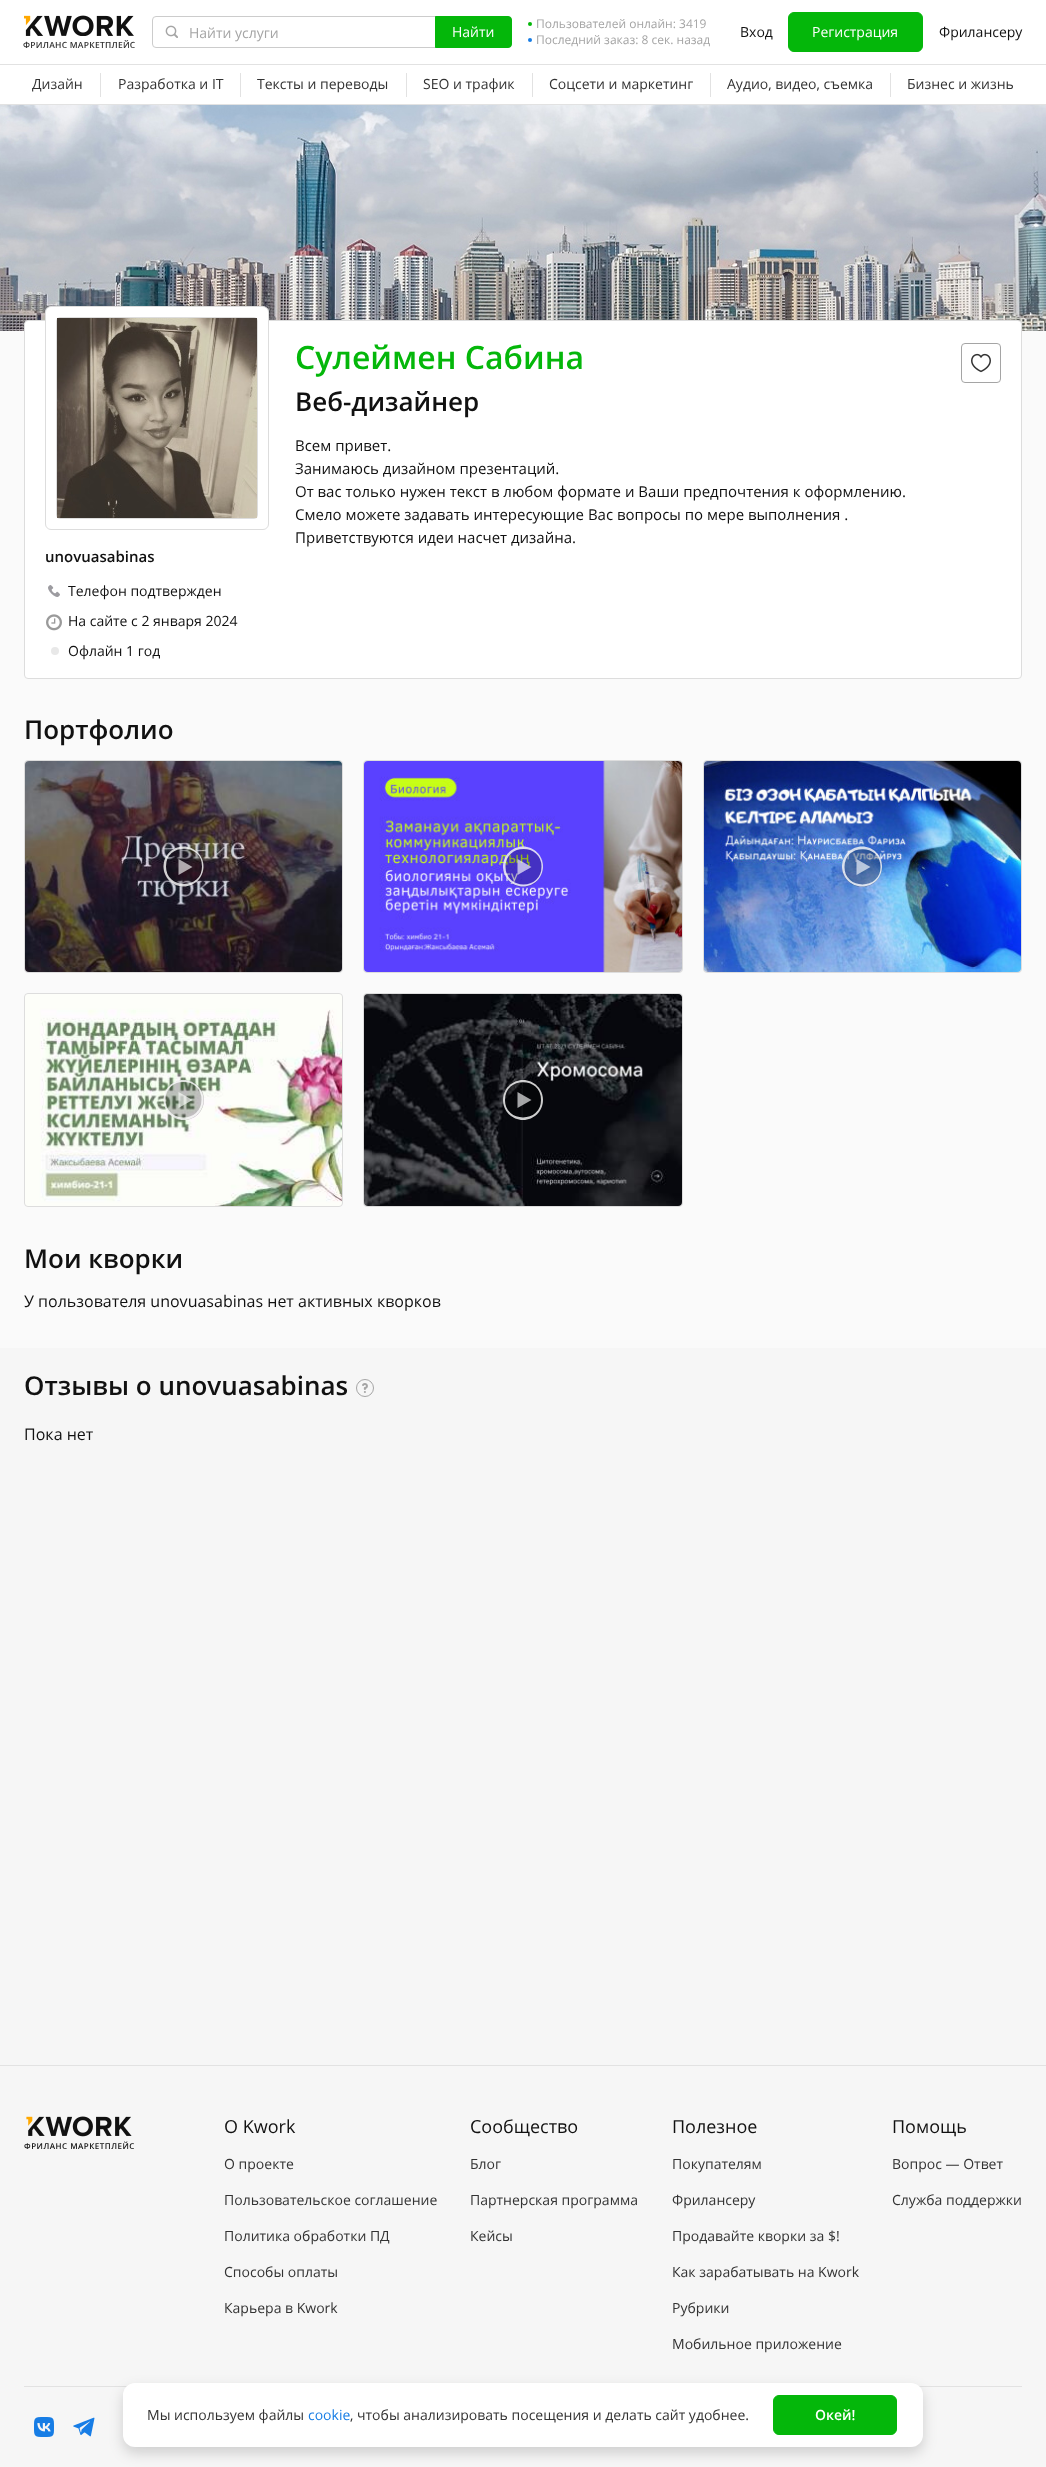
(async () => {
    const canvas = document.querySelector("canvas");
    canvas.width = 1046;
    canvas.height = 2467;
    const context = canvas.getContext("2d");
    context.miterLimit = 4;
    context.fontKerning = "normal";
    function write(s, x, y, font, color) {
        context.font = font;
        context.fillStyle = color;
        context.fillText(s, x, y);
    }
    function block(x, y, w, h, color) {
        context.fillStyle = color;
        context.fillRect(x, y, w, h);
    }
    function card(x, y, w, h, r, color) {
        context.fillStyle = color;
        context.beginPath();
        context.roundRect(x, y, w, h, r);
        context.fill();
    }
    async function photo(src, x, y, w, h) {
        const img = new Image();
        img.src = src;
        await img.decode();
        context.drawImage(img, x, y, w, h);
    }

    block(0, 0, 1046, 2467, "rgb(246, 246, 246)");
    block(0, 0, 1046, 104, "rgb(255, 255, 255)");
    block(0, 104, 1046, 1, "rgb(226, 226, 226)");
    context.beginPath();
    context.roundRect(152.5, 16.5, 359, 31, 3.5);
    context.strokeStyle = "rgb(204, 204, 204)";
    context.stroke();
    await photo("media/1.png", 165, 25, 13, 13);
    write("Найти услуги", 189, 38, "14px Open Sans", "rgb(165, 165, 165)");
    context.fillStyle = "rgb(4, 183, 10)";
    context.beginPath();
    context.roundRect(435.5, 16.5, 76, 31, [0, 3.5, 3.5, 0]);
    context.fill();
    context.strokeStyle = "rgb(4, 183, 10)";
    context.stroke();
    write("Найти", 452, 37, "14px Open Sans", "rgb(255, 255, 255)");
    context.fillStyle = "rgb(4, 183, 10)";
    context.beginPath();
    context.arc(530, 24, 2, 0, Math.PI * 2);
    context.fill();
    write("Пользователей онлайн: 3419", 536, 28, "12px Open Sans", "rgb(165, 165, 165)");
    context.fillStyle = "rgb(23, 125, 229)";
    context.beginPath();
    context.arc(530, 40, 2, 0, Math.PI * 2);
    context.fill();
    write("Последний заказ: 8 сек. назад", 536, 44, "12px Open Sans", "rgb(165, 165, 165)");
    write("Вход", 740, 37, "14px Open Sans", "rgb(17, 17, 17)");
    context.fillStyle = "rgb(4, 183, 10)";
    context.beginPath();
    context.roundRect(788.5, 12.5, 134, 39, 5.5);
    context.fill();
    context.stroke();
    write("Регистрация", 812, 37, "14px Open Sans", "rgb(255, 255, 255)");
    write("Фрилансеру", 939, 37, "14px Open Sans", "rgb(17, 17, 17)");
    await photo("media/2.png", 24, 15, 110, 21);
    context.letterSpacing = "0.25px";
    write("ФРИЛАНС МАРКЕТПЛЕЙС", 23, 48, "600 8.5px Open Sans", "rgb(51, 51, 51)");
    block(0, 64, 1046, 1, "rgb(226, 226, 226)");
    context.letterSpacing = "0px";
    write("Дизайн", 32, 89, "14px Open Sans", "rgb(51, 51, 51)");
    block(100, 73, 1, 24, "rgb(226, 226, 226)");
    write("Разработка и IT", 118, 89, "14px Open Sans", "rgb(51, 51, 51)");
    block(240, 73, 1, 24, "rgb(226, 226, 226)");
    write("Тексты и переводы", 257, 89, "14px Open Sans", "rgb(51, 51, 51)");
    block(406, 73, 1, 24, "rgb(226, 226, 226)");
    write("SEO и трафик", 423, 89, "14px Open Sans", "rgb(51, 51, 51)");
    block(532, 73, 1, 24, "rgb(226, 226, 226)");
    write("Соцсети и маркетинг", 549, 89, "14px Open Sans", "rgb(51, 51, 51)");
    block(710, 73, 1, 24, "rgb(226, 226, 226)");
    write("Аудио, видео, съемка", 727, 89, "14px Open Sans", "rgb(51, 51, 51)");
    block(890, 73, 1, 24, "rgb(226, 226, 226)");
    write("Бизнес и жизнь", 907, 89, "14px Open Sans", "rgb(51, 51, 51)");
    await photo("media/3.png", 0, 105, 1046, 226);
    block(0, 331, 1046, 1017, "rgb(250, 250, 250)");
    context.fillStyle = "rgb(255, 255, 255)";
    context.beginPath();
    context.roundRect(24.5, 320.5, 997, 358, 3.5);
    context.fill();
    context.strokeStyle = "rgb(221, 221, 221)";
    context.stroke();
    write("Сулеймен Сабина", 295, 369, "600 32px Open Sans", "rgb(4, 183, 10)");
    write("Веб-дизайнер", 295, 411, "600 26px Open Sans", "rgb(17, 17, 17)");
    write("Всем привет.", 295, 451, "15px Open Sans", "rgb(17, 17, 17)");
    write("Занимаюсь дизайном презентаций.", 295, 474, "15px Open Sans", "rgb(17, 17, 17)");
    write("От вас только нужен текст в любом формате и Ваши предпочтения к оформлению.", 295, 497, "15px Open Sans", "rgb(17, 17, 17)");
    write("Смело можете задавать интересующие Вас вопросы по мере выполнения .", 295, 520, "15px Open Sans", "rgb(17, 17, 17)");
    write("Приветствуются идеи насчет дизайна.", 295, 543, "15px Open Sans", "rgb(17, 17, 17)");
    context.beginPath();
    context.roundRect(961.5, 343.5, 39, 39, 3.5);
    context.strokeStyle = "rgb(165, 165, 165)";
    context.stroke();
    await photo("media/4.png", 971, 353, 20, 20);
    context.fillStyle = "rgb(255, 255, 255)";
    context.beginPath();
    context.roundRect(45.5, 306.5, 223, 223, 5.5);
    context.fill();
    context.strokeStyle = "rgb(221, 221, 221)";
    context.stroke();
    context.beginPath();
    context.roundRect(56.5, 317.5, 201, 201, 3.5);
    context.stroke();
    await photo("media/5.png", 57, 318, 200, 200);
    write("unovuasabinas", 45, 562, "600 15px Open Sans", "rgb(17, 17, 17)");
    await photo("media/6.png", 48, 585, 12, 12);
    write("Телефон подтвержден", 68, 596, "14px Open Sans", "rgb(17, 17, 17)");
    await photo("media/7.png", 46, 614, 16, 17);
    write("На сайте с 2 января 2024", 68, 626, "14px Open Sans", "rgb(17, 17, 17)");
    context.fillStyle = "rgb(232, 232, 232)";
    context.beginPath();
    context.arc(55, 651, 4, 0, Math.PI * 2);
    context.fill();
    write("Офлайн 1 год", 68, 656, "14px Open Sans", "rgb(17, 17, 17)");
    write("Портфолио", 24, 739, "600 26px Open Sans", "rgb(17, 17, 17)");
    context.fillStyle = "rgb(242, 242, 242)";
    context.beginPath();
    context.roundRect(24.5, 760.5, 318, 212, 3.5);
    context.fill();
    context.stroke();
    await photo("media/8.png", 25, 761, 317, 211);
    context.fillStyle = "rgba(0, 0, 0, 0.24)";
    context.beginPath();
    context.arc(184, 867, 20, 0, Math.PI * 2);
    context.fill();
    context.fillStyle = "rgba(255, 255, 255, 0.64)";
    context.beginPath();
    context.moveTo(178.5, 859);
    context.lineTo(178.5, 875);
    context.lineTo(192.5, 867);
    context.closePath();
    context.fill("evenodd");
    context.save();
    context.beginPath();
    context.moveTo(163.5, 866.5);
    context.bezierCurveTo(163.5, 855.5, 172.5, 846.5, 183.5, 846.5);
    context.bezierCurveTo(194.5, 846.5, 203.5, 855.5, 203.5, 866.5);
    context.bezierCurveTo(203.5, 877.5, 194.5, 886.5, 183.5, 886.5);
    context.bezierCurveTo(172.5, 886.5, 163.5, 877.5, 163.5, 866.5);
    context.closePath();
    context.clip();
    context.beginPath();
    context.moveTo(164, 866.5);
    context.bezierCurveTo(164, 840, 204, 840, 204, 866.5);
    context.bezierCurveTo(204, 892.5, 164, 892.5, 164, 866.5);
    context.strokeStyle = "rgba(255, 255, 255, 0.8)";
    context.lineWidth = 4;
    context.stroke();
    context.restore();
    context.fillStyle = "rgb(242, 242, 242)";
    context.beginPath();
    context.roundRect(363.5, 760.5, 319, 212, 3.5);
    context.fill();
    context.stroke();
    await photo("media/9.png", 364, 761, 318, 211);
    context.fillStyle = "rgba(0, 0, 0, 0.24)";
    context.beginPath();
    context.arc(523, 867, 20, 0, Math.PI * 2);
    context.fill();
    context.fillStyle = "rgba(255, 255, 255, 0.64)";
    context.beginPath();
    context.moveTo(517.5, 859);
    context.lineTo(517.5, 875);
    context.lineTo(531.5, 867);
    context.closePath();
    context.fill("evenodd");
    context.save();
    context.beginPath();
    context.moveTo(503, 866.5);
    context.bezierCurveTo(503, 855.5, 512, 846.5, 523, 846.5);
    context.bezierCurveTo(534, 846.5, 543, 855.5, 543, 866.5);
    context.bezierCurveTo(543, 877.5, 534, 886.5, 523, 886.5);
    context.bezierCurveTo(512, 886.5, 503, 877.5, 503, 866.5);
    context.closePath();
    context.clip();
    context.beginPath();
    context.moveTo(503.5, 866.5);
    context.bezierCurveTo(503.5, 840.5, 543.5, 840.5, 543.5, 866.5);
    context.bezierCurveTo(543.5, 893, 503.5, 893, 503.5, 866.5);
    context.strokeStyle = "rgba(255, 255, 255, 0.8)";
    context.lineWidth = 4;
    context.stroke();
    context.restore();
    context.fillStyle = "rgb(242, 242, 242)";
    context.beginPath();
    context.roundRect(703.5, 760.5, 318, 212, 3.5);
    context.fill();
    context.stroke();
    await photo("media/10.png", 704, 761, 317, 211);
    context.fillStyle = "rgba(0, 0, 0, 0.24)";
    context.beginPath();
    context.arc(862, 867, 20, 0, Math.PI * 2);
    context.fill();
    context.fillStyle = "rgba(255, 255, 255, 0.64)";
    context.beginPath();
    context.moveTo(856.5, 859);
    context.lineTo(856.5, 875);
    context.lineTo(870.5, 867);
    context.closePath();
    context.fill("evenodd");
    context.save();
    context.beginPath();
    context.moveTo(842, 866.5);
    context.bezierCurveTo(842, 855.5, 851, 846.5, 862, 846.5);
    context.bezierCurveTo(873.5, 846.5, 882, 855.5, 882, 866.5);
    context.bezierCurveTo(882, 877.5, 873.5, 886.5, 862, 886.5);
    context.bezierCurveTo(851, 886.5, 842, 877.5, 842, 866.5);
    context.closePath();
    context.clip();
    context.beginPath();
    context.moveTo(842.5, 867);
    context.bezierCurveTo(842.5, 840.5, 882.5, 840.5, 882.5, 867);
    context.bezierCurveTo(882.5, 893, 842.5, 893, 842.5, 867);
    context.strokeStyle = "rgba(255, 255, 255, 0.8)";
    context.lineWidth = 4;
    context.stroke();
    context.restore();
    context.fillStyle = "rgb(242, 242, 242)";
    context.beginPath();
    context.roundRect(24.5, 993.5, 318, 213, 3.5);
    context.fill();
    context.stroke();
    await photo("media/11.png", 25, 994, 317, 212);
    context.fillStyle = "rgba(0, 0, 0, 0.24)";
    context.beginPath();
    context.arc(184, 1100, 20, 0, Math.PI * 2);
    context.fill();
    context.fillStyle = "rgba(255, 255, 255, 0.64)";
    context.beginPath();
    context.moveTo(178.5, 1092);
    context.lineTo(178.5, 1108);
    context.lineTo(192.5, 1100);
    context.closePath();
    context.fill("evenodd");
    context.save();
    context.beginPath();
    context.moveTo(163.5, 1100);
    context.bezierCurveTo(163.5, 1089, 172.5, 1080, 183.5, 1080);
    context.bezierCurveTo(194.5, 1080, 203.5, 1089, 203.5, 1100);
    context.bezierCurveTo(203.5, 1111, 194.5, 1120, 183.5, 1120);
    context.bezierCurveTo(172.5, 1120, 163.5, 1111, 163.5, 1100);
    context.closePath();
    context.clip();
    context.beginPath();
    context.moveTo(163.5, 1099.5);
    context.bezierCurveTo(163.5, 1073.5, 203.5, 1073.5, 203.5, 1099.5);
    context.bezierCurveTo(203.5, 1126, 163.5, 1126, 163.5, 1099.5);
    context.strokeStyle = "rgba(255, 255, 255, 0.8)";
    context.lineWidth = 4;
    context.stroke();
    context.restore();
    context.fillStyle = "rgb(242, 242, 242)";
    context.beginPath();
    context.roundRect(363.5, 993.5, 319, 213, 3.5);
    context.fill();
    context.stroke();
    await photo("media/12.png", 364, 994, 318, 212);
    context.fillStyle = "rgba(0, 0, 0, 0.24)";
    context.beginPath();
    context.arc(523, 1100, 20, 0, Math.PI * 2);
    context.fill();
    context.fillStyle = "rgba(255, 255, 255, 0.64)";
    context.beginPath();
    context.moveTo(517.5, 1092);
    context.lineTo(517.5, 1108);
    context.lineTo(531.5, 1100);
    context.closePath();
    context.fill("evenodd");
    context.save();
    context.beginPath();
    context.moveTo(503, 1100);
    context.bezierCurveTo(503, 1089, 512, 1080, 523, 1080);
    context.bezierCurveTo(534, 1080, 543, 1089, 543, 1100);
    context.bezierCurveTo(543, 1111, 534, 1120, 523, 1120);
    context.bezierCurveTo(512, 1120, 503, 1111, 503, 1100);
    context.closePath();
    context.clip();
    context.beginPath();
    context.moveTo(503, 1100);
    context.bezierCurveTo(503, 1073.5, 543, 1073.5, 543, 1100);
    context.bezierCurveTo(543, 1126, 503, 1126, 503, 1100);
    context.strokeStyle = "rgba(255, 255, 255, 0.8)";
    context.lineWidth = 4;
    context.stroke();
    context.restore();
    write("Мои кворки", 24, 1268, "600 26px Open Sans", "rgb(17, 17, 17)");
    write("У пользователя unovuasabinas нет активных кворков", 24, 1307, "16px Open Sans", "rgb(17, 17, 17)");
    write("Отзывы о unovuasabinas", 24, 1395, "600 26px Open Sans", "rgb(17, 17, 17)");
    context.beginPath();
    context.arc(365, 1388, 8.5, 0, Math.PI * 2);
    context.strokeStyle = "rgb(165, 165, 165)";
    context.stroke();
    await photo("media/13.png", 362, 1383, 6, 10);
    write("Пока нет", 24, 1440, "16px Open Sans", "rgb(17, 17, 17)");
    block(0, 2065, 1046, 1, "rgb(226, 226, 226)");
    await photo("media/14.png", 26, 2116, 106, 21);
    context.letterSpacing = "0.5px";
    write("ФРИЛАНС МАРКЕТПЛЕЙС", 24, 2149, "600 8px Open Sans", "rgb(17, 17, 17)");
    context.letterSpacing = "0px";
    write("О Kwork", 224, 2133, "18px Open Sans", "rgb(17, 17, 17)");
    write("О проекте", 224, 2169, "14px Open Sans", "rgb(51, 51, 51)");
    write("Пользовательское соглашение", 224, 2205, "14px Open Sans", "rgb(51, 51, 51)");
    write("Политика обработки ПД", 224, 2241, "14px Open Sans", "rgb(51, 51, 51)");
    write("Способы оплаты", 224, 2277, "14px Open Sans", "rgb(51, 51, 51)");
    write("Карьера в Kwork", 224, 2313, "14px Open Sans", "rgb(51, 51, 51)");
    write("Сообщество", 470, 2133, "18px Open Sans", "rgb(17, 17, 17)");
    write("Блог", 470, 2169, "14px Open Sans", "rgb(51, 51, 51)");
    write("Партнерская программа", 470, 2205, "14px Open Sans", "rgb(51, 51, 51)");
    write("Кейсы", 470, 2241, "14px Open Sans", "rgb(51, 51, 51)");
    write("Полезное", 672, 2133, "18px Open Sans", "rgb(17, 17, 17)");
    write("Покупателям", 672, 2169, "14px Open Sans", "rgb(51, 51, 51)");
    write("Фрилансеру", 672, 2205, "14px Open Sans", "rgb(51, 51, 51)");
    write("Продавайте кворки за $!", 672, 2241, "14px Open Sans", "rgb(51, 51, 51)");
    write("Как зарабатывать на Kwork", 672, 2277, "14px Open Sans", "rgb(51, 51, 51)");
    write("Рубрики", 672, 2313, "14px Open Sans", "rgb(51, 51, 51)");
    write("Мобильное приложение", 672, 2349, "14px Open Sans", "rgb(51, 51, 51)");
    write("Помощь", 892, 2133, "18px Open Sans", "rgb(17, 17, 17)");
    write("Вопрос — Ответ", 892, 2169, "14px Open Sans", "rgb(51, 51, 51)");
    write("Служба поддержки", 892, 2205, "14px Open Sans", "rgb(51, 51, 51)");
    block(24, 2386, 998, 1, "rgb(226, 226, 226)");
    await photo("media/15.png", 34, 2417, 20, 20);
    await photo("media/16.png", 73, 2417, 22, 20);
    context.fillStyle = "rgba(0, 0, 0, 0.16)";
    context.filter = "blur(7px)";
    context.beginPath();
    context.roundRect(123, 2389, 800, 64, 12);
    context.fill();
    context.filter = "none";
    card(123, 2383, 800, 64, 12, "rgb(255, 255, 255)");
    write("Мы используем файлы", 147, 2420, "14px Open Sans", "rgb(51, 51, 51)");
    write("cookie", 308, 2420, "14px Open Sans", "rgb(23, 125, 229)");
    write(", чтобы анализировать посещения и делать сайт удобнее.", 350, 2420, "14px Open Sans", "rgb(51, 51, 51)");
    context.fillStyle = "rgb(4, 183, 10)";
    context.beginPath();
    context.roundRect(773.5, 2395.5, 123, 39, 5.5);
    context.fill();
    context.strokeStyle = "rgb(4, 183, 10)";
    context.stroke();
    write("Окей!", 815, 2420, "600 14px Open Sans", "rgb(255, 255, 255)");
})();
